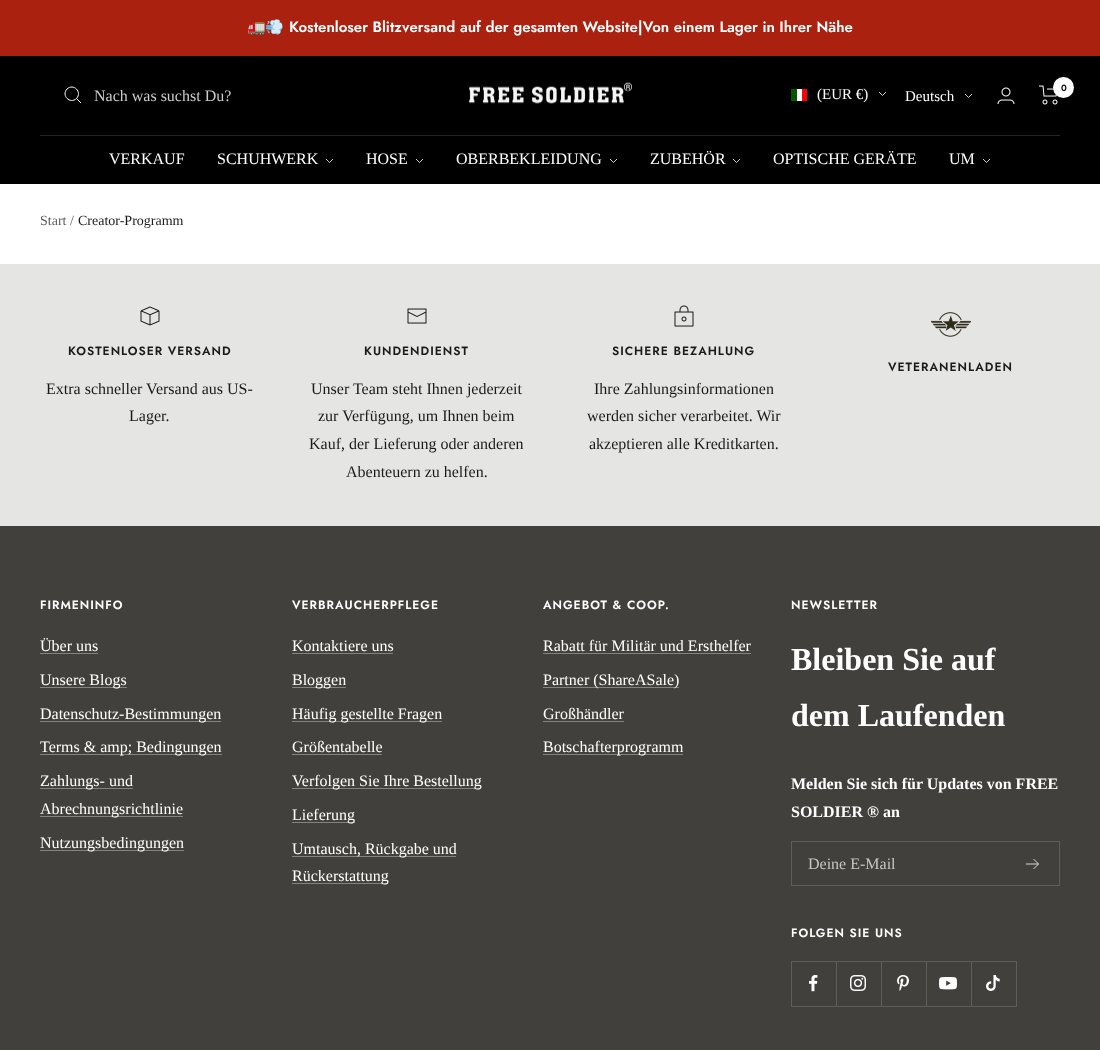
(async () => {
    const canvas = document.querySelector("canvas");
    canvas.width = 1100;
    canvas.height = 1050;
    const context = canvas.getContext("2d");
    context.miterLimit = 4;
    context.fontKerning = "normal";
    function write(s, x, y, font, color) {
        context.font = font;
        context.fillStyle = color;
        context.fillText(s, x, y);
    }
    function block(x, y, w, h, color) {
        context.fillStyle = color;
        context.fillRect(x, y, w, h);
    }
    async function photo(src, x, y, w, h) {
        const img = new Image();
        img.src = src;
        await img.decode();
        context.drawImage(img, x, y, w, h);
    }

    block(0, 0, 1100, 1050, "rgb(255, 255, 255)");
    block(0, 0, 1100, 56, "rgb(170, 33, 15)");
    write("🚛💨", 247, 32, "15px Noto Color Emoji", "rgb(255, 255, 255)");
    write("Kostenloser Blitzversand auf der gesamten Website|Von einem Lager in Ihrer Nähe", 289, 32, "600 15px Jost", "rgb(255, 255, 255)");
    block(0, 56, 1100, 128, "rgb(0, 0, 0)");
    context.beginPath();
    context.moveTo(76.5, 98.5);
    context.bezierCurveTo(82.5, 92, 73.5, 83, 67, 89);
    context.bezierCurveTo(61, 95.5, 70, 104.5, 76.5, 98.5);
    context.closePath();
    context.moveTo(76.5, 98.5);
    context.lineTo(81, 103);
    context.strokeStyle = "rgb(255, 255, 255)";
    context.stroke();
    write("Nach was suchst Du?", 94, 101, "16px Liberation Serif", "rgb(204, 204, 204)");
    await photo("media/1.png", 469, 82, 163, 22);
    block(797, 89, 5, 12, "rgb(255, 255, 255)");
    block(791, 89, 6, 12, "rgb(0, 87, 0)");
    block(802, 89, 5, 12, "rgb(252, 0, 0)");
    write("(EUR €)", 817, 99, "15px Liberation Serif", "rgb(255, 255, 255)");
    context.beginPath();
    context.moveTo(879, 92);
    context.lineTo(882.5, 95.5);
    context.lineTo(886, 92);
    context.lineWidth = 0.8;
    context.stroke();
    write("Deutsch", 905, 101, "15px Liberation Serif", "rgb(255, 255, 255)");
    context.beginPath();
    context.moveTo(965, 94);
    context.lineTo(968.5, 97.5);
    context.lineTo(972, 94);
    context.stroke();
    await photo("media/2.png", 997, 87, 18, 17);
    await photo("media/3.png", 1039, 85, 19, 20);
    context.beginPath();
    context.arc(1063.5, 87.5, 10.5, 0, Math.PI * 2);
    context.fill();
    write("0", 1061, 91, "600 9px Jost", "rgb(0, 0, 0)");
    block(40, 135, 1020, 1, "rgb(38, 38, 38)");
    write("VERKAUF", 109, 164, "16px Liberation Serif", "rgb(255, 255, 255)");
    write("SCHUHWERK", 217, 164, "16px Liberation Serif", "rgb(255, 255, 255)");
    context.beginPath();
    context.moveTo(326, 159);
    context.lineTo(329.5, 162.5);
    context.lineTo(333, 159);
    context.stroke();
    write("HOSE", 366, 164, "16px Liberation Serif", "rgb(255, 255, 255)");
    context.beginPath();
    context.moveTo(416, 159);
    context.lineTo(419.5, 162.5);
    context.lineTo(423, 159);
    context.stroke();
    write("OBERBEKLEIDUNG", 456, 164, "16px Liberation Serif", "rgb(255, 255, 255)");
    context.beginPath();
    context.moveTo(610, 159);
    context.lineTo(613.5, 162.5);
    context.lineTo(617, 159);
    context.stroke();
    write("ZUBEHÖR", 650, 164, "16px Liberation Serif", "rgb(255, 255, 255)");
    context.beginPath();
    context.moveTo(733, 159);
    context.lineTo(736.5, 162.5);
    context.lineTo(740, 159);
    context.stroke();
    write("OPTISCHE GERÄTE", 773, 164, "16px Liberation Serif", "rgb(255, 255, 255)");
    write("UM", 949, 164, "16px Liberation Serif", "rgb(255, 255, 255)");
    context.beginPath();
    context.moveTo(983, 159);
    context.lineTo(986.5, 162.5);
    context.lineTo(990, 159);
    context.stroke();
    write("Start", 40, 225, "14px Liberation Serif", "rgb(95, 95, 95)");
    write("/", 70, 225, "14px Liberation Serif", "rgb(95, 95, 95)");
    write("Creator-Programm", 78, 225, "14px Liberation Serif", "rgb(26, 26, 26)");
    block(0, 264, 1100, 262, "rgb(229, 229, 227)");
    await photo("media/4.png", 140, 306, 20, 20);
    context.letterSpacing = "1px";
    write("KOSTENLOSER VERSAND", 68, 355, "600 12px Jost", "rgb(26, 26, 26)");
    context.letterSpacing = "0px";
    write("Extra schneller Versand aus US-", 46, 394, "16px Liberation Serif", "rgb(26, 26, 26)");
    write("Lager.", 129, 421, "16px Liberation Serif", "rgb(26, 26, 26)");
    await photo("media/5.png", 407, 308, 20, 16);
    context.letterSpacing = "1px";
    write("KUNDENDIENST", 364, 355, "600 12px Jost", "rgb(26, 26, 26)");
    context.letterSpacing = "0px";
    write("Unser Team steht Ihnen jederzeit", 311, 394, "16px Liberation Serif", "rgb(26, 26, 26)");
    write("zur Verfügung, um Ihnen beim", 318, 421, "16px Liberation Serif", "rgb(26, 26, 26)");
    write("Kauf, der Lieferung oder anderen", 309, 449, "16px Liberation Serif", "rgb(26, 26, 26)");
    write("Abenteuern zu helfen.", 346, 477, "16px Liberation Serif", "rgb(26, 26, 26)");
    await photo("media/6.png", 674, 305, 20, 22);
    context.letterSpacing = "1px";
    write("SICHERE BEZAHLUNG", 612, 355, "600 12px Jost", "rgb(26, 26, 26)");
    context.letterSpacing = "0px";
    write("Ihre Zahlungsinformationen", 594, 394, "16px Liberation Serif", "rgb(26, 26, 26)");
    write("werden sicher verarbeitet. Wir", 587, 421, "16px Liberation Serif", "rgb(26, 26, 26)");
    write("akzeptieren alle Kreditkarten.", 589, 449, "16px Liberation Serif", "rgb(26, 26, 26)");
    await photo("media/7.png", 931, 312, 40, 25);
    context.letterSpacing = "1px";
    write("VETERANENLADEN", 888, 371, "600 12px Jost", "rgb(26, 26, 26)");
    block(0, 526, 1100, 524, "rgb(65, 64, 60)");
    write("FIRMENINFO", 40, 609, "600 12px Jost", "rgb(255, 255, 255)");
    context.letterSpacing = "0px";
    write("Über uns", 40, 651, "16px Liberation Serif", "rgb(255, 255, 255)");
    block(40, 653, 58, 1, "rgb(132, 131, 128)");
    block(40, 687, 87, 1, "rgb(132, 131, 128)");
    write("Unsere Blogs", 40, 685, "16px Liberation Serif", "rgb(255, 255, 255)");
    block(40, 721, 181, 1, "rgb(132, 131, 128)");
    write("Datenschutz-Bestimmungen", 40, 719, "16px Liberation Serif", "rgb(255, 255, 255)");
    block(40, 754, 182, 1, "rgb(132, 131, 128)");
    write("Terms & amp; Bedingungen", 40, 752, "16px Liberation Serif", "rgb(255, 255, 255)");
    block(40, 788, 93, 1, "rgb(132, 131, 128)");
    write("Zahlungs- und", 40, 786, "16px Liberation Serif", "rgb(255, 255, 255)");
    block(40, 816, 143, 1, "rgb(132, 131, 128)");
    write("Abrechnungsrichtlinie", 40, 814, "16px Liberation Serif", "rgb(255, 255, 255)");
    block(40, 850, 144, 1, "rgb(132, 131, 128)");
    write("Nutzungsbedingungen", 40, 848, "16px Liberation Serif", "rgb(255, 255, 255)");
    context.letterSpacing = "1px";
    write("VERBRAUCHERPFLEGE", 292, 609, "600 12px Jost", "rgb(255, 255, 255)");
    context.letterSpacing = "0px";
    write("Kontaktiere uns", 292, 651, "16px Liberation Serif", "rgb(255, 255, 255)");
    block(292, 653, 101, 1, "rgb(132, 131, 128)");
    block(292, 687, 54, 1, "rgb(132, 131, 128)");
    write("Bloggen", 292, 685, "16px Liberation Serif", "rgb(255, 255, 255)");
    block(292, 721, 150, 1, "rgb(132, 131, 128)");
    write("Häufig gestellte Fragen", 292, 719, "16px Liberation Serif", "rgb(255, 255, 255)");
    write("Größentabelle", 292, 752, "16px Liberation Serif", "rgb(255, 255, 255)");
    block(292, 754, 90, 1, "rgb(132, 131, 128)");
    block(292, 788, 189, 1, "rgb(132, 131, 128)");
    write("Verfolgen Sie Ihre Bestellung", 292, 786, "16px Liberation Serif", "rgb(255, 255, 255)");
    block(292, 822, 63, 1, "rgb(132, 131, 128)");
    write("Lieferung", 292, 820, "16px Liberation Serif", "rgb(255, 255, 255)");
    block(292, 856, 164, 1, "rgb(132, 131, 128)");
    write("Umtausch, Rückgabe und", 292, 854, "16px Liberation Serif", "rgb(255, 255, 255)");
    block(292, 883, 96, 1, "rgb(132, 131, 128)");
    write("Rückerstattung", 292, 881, "16px Liberation Serif", "rgb(255, 255, 255)");
    context.letterSpacing = "1px";
    write("ANGEBOT & COOP.", 543, 609, "600 12px Jost", "rgb(255, 255, 255)");
    context.letterSpacing = "0px";
    write("Rabatt für Militär und Ersthelfer", 543, 651, "16px Liberation Serif", "rgb(255, 255, 255)");
    block(543, 653, 208, 1, "rgb(132, 131, 128)");
    block(543, 687, 136, 1, "rgb(132, 131, 128)");
    write("Partner (ShareASale)", 543, 685, "16px Liberation Serif", "rgb(255, 255, 255)");
    write("Großhändler", 543, 719, "16px Liberation Serif", "rgb(255, 255, 255)");
    block(543, 721, 81, 1, "rgb(132, 131, 128)");
    block(543, 754, 140, 1, "rgb(132, 131, 128)");
    write("Botschafterprogramm", 543, 752, "16px Liberation Serif", "rgb(255, 255, 255)");
    context.letterSpacing = "1px";
    write("NEWSLETTER", 791, 609, "600 12px Jost", "rgb(255, 255, 255)");
    context.letterSpacing = "0px";
    write("Bleiben Sie auf", 791, 670, "bold 32px Liberation Serif", "rgb(255, 255, 255)");
    write("dem Laufenden", 791, 726, "bold 32px Liberation Serif", "rgb(255, 255, 255)");
    write("Melden Sie sich für Updates von FREE", 791, 789, "bold 16px Liberation Serif", "rgb(255, 255, 255)");
    write("SOLDIER ® an", 791, 817, "bold 16px Liberation Serif", "rgb(255, 255, 255)");
    context.strokeStyle = "rgb(94, 93, 89)";
    context.lineWidth = 1;
    context.strokeRect(791.5, 841.5, 268, 44);
    write("Deine E-Mail", 808, 869, "16px Liberation Serif", "rgb(198, 198, 197)");
    context.beginPath();
    context.moveTo(1026, 864);
    context.lineTo(1038.5, 864);
    context.moveTo(1033.5, 859);
    context.lineTo(1038.5, 864);
    context.lineTo(1033.5, 869);
    context.strokeStyle = "rgb(255, 255, 255)";
    context.lineWidth = 0.8;
    context.stroke();
    context.letterSpacing = "1px";
    write("FOLGEN SIE UNS", 791, 937, "600 12px Jost", "rgb(255, 255, 255)");
    context.fillStyle = "rgb(94, 93, 89)";
    context.beginPath();
    context.moveTo(792, 1006);
    context.lineTo(792, 1007);
    context.lineTo(837, 1007);
    context.lineTo(837, 962);
    context.lineTo(836, 962);
    context.lineTo(836, 1006);
    context.closePath();
    context.fill();
    block(791, 1006, 1, 1, "rgb(94, 93, 89)");
    block(791, 961, 46, 1, "rgb(94, 93, 89)");
    block(791, 961, 1, 45, "rgb(94, 93, 89)");
    await photo("media/8.png", 809, 975, 9, 17);
    context.beginPath();
    context.moveTo(837, 1006);
    context.lineTo(837, 1007);
    context.lineTo(882, 1007);
    context.lineTo(882, 962);
    context.lineTo(881, 962);
    context.lineTo(881, 1006);
    context.closePath();
    context.fill();
    block(836, 961, 46, 1, "rgb(94, 93, 89)");
    await photo("media/9.png", 850, 975, 16, 16);
    context.beginPath();
    context.moveTo(882, 1006);
    context.lineTo(882, 1007);
    context.lineTo(927, 1007);
    context.lineTo(927, 962);
    context.lineTo(926, 962);
    context.lineTo(926, 1006);
    context.closePath();
    context.fill();
    block(881, 961, 46, 1, "rgb(94, 93, 89)");
    await photo("media/10.png", 897, 975, 12, 16);
    context.beginPath();
    context.moveTo(927, 1006);
    context.lineTo(927, 1007);
    context.lineTo(972, 1007);
    context.lineTo(972, 962);
    context.lineTo(971, 962);
    context.lineTo(971, 1006);
    context.closePath();
    context.fill();
    block(926, 961, 46, 1, "rgb(94, 93, 89)");
    await photo("media/11.png", 939, 977, 18, 13);
    context.beginPath();
    context.moveTo(972, 1006);
    context.lineTo(972, 1007);
    context.lineTo(1017, 1007);
    context.lineTo(1017, 962);
    context.lineTo(1016, 962);
    context.lineTo(1016, 1006);
    context.closePath();
    context.fill();
    block(971, 961, 46, 1, "rgb(94, 93, 89)");
    await photo("media/12.png", 986, 975, 14, 16);
})();
